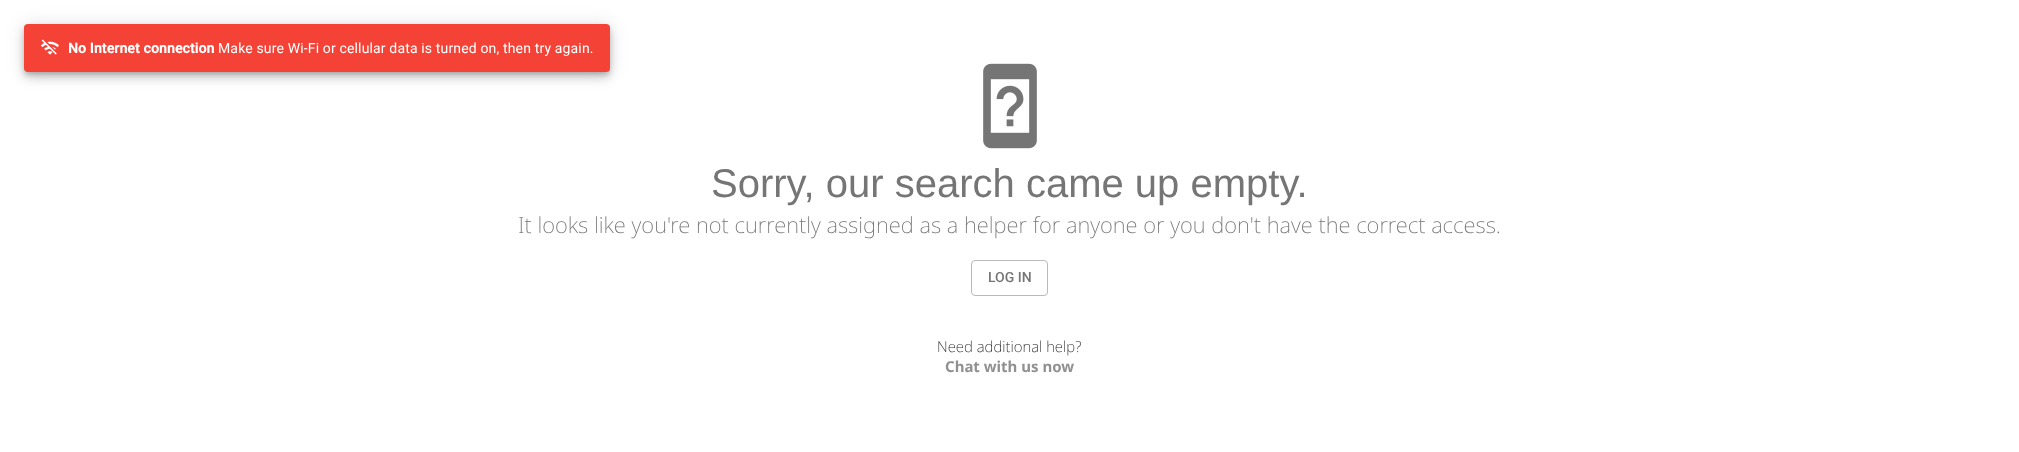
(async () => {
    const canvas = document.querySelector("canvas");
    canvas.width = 2019;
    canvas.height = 452;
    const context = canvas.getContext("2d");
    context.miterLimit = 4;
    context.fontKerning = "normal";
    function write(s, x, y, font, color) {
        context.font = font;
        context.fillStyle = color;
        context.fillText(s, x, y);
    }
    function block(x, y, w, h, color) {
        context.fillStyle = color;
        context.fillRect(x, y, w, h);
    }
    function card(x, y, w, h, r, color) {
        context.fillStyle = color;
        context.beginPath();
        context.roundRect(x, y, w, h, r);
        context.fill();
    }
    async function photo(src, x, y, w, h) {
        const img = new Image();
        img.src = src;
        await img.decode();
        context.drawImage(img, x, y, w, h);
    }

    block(0, 0, 2019, 452, "rgb(255, 255, 255)");
    context.fillStyle = "rgba(0, 0, 0, 0.12)";
    context.filter = "blur(9px)";
    context.beginPath();
    context.roundRect(24, 25, 586, 48, 4);
    context.fill();
    context.filter = "none";
    context.fillStyle = "rgba(0, 0, 0, 0.14)";
    context.filter = "blur(5px)";
    context.beginPath();
    context.roundRect(24, 30, 586, 48, 4);
    context.fill();
    context.filter = "none";
    context.fillStyle = "rgba(0, 0, 0, 0.2)";
    context.filter = "blur(2.5px)";
    context.beginPath();
    context.roundRect(25, 28, 584, 46, 3);
    context.fill();
    context.filter = "none";
    card(24, 24, 586, 48, 4, "rgb(244, 67, 54)");
    await photo("media/1.png", 40, 39, 20, 16);
    context.letterSpacing = "0.15px";
    write("No Internet connection", 68, 53, "bold 14px Roboto", "rgb(255, 255, 255)");
    write("Make sure Wi-Fi or cellular data is turned on, then try again.", 218, 53, "14px Roboto", "rgb(255, 255, 255)");
    await photo("media/2.png", 983, 63, 54, 86);
    context.letterSpacing = "0px";
    write("Sorry, our search came up empty.", 711, 197, "40px Liberation Sans", "rgb(117, 117, 117)");
    write("It looks like you're not currently assigned as a helper for anyone or you don't have the correct access.", 518, 233, "200 22px Noto Sans", "rgb(117, 117, 117)");
    context.beginPath();
    context.roundRect(971.5, 260.5, 76, 35, 3.5);
    context.strokeStyle = "rgb(186, 186, 186)";
    context.stroke();
    write("LOG IN", 988, 282, "500 14px Roboto", "rgb(117, 117, 117)");
    write("Need additional help?", 937, 352, "200 15px Noto Sans", "rgb(33, 33, 33)");
    write("Chat with us now", 945, 372, "bold 15px Noto Sans", "rgb(144, 144, 144)");
})();
